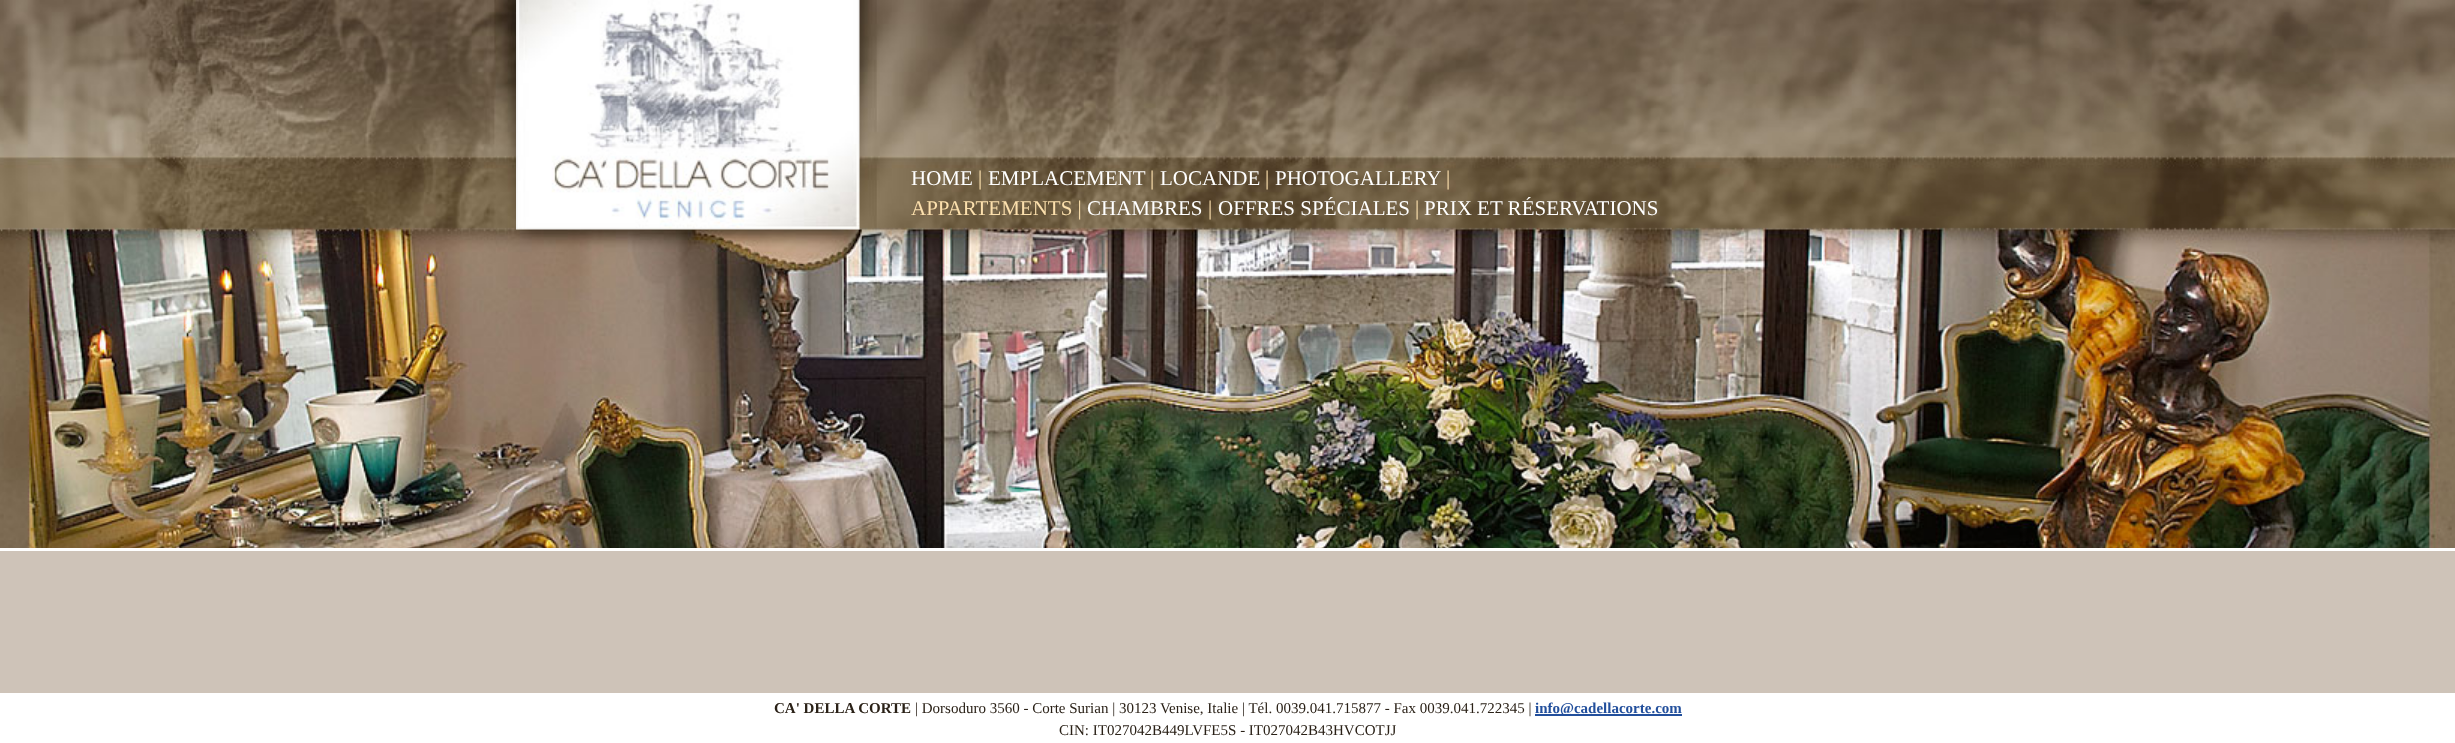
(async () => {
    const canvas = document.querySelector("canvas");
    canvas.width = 2455;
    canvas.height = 743;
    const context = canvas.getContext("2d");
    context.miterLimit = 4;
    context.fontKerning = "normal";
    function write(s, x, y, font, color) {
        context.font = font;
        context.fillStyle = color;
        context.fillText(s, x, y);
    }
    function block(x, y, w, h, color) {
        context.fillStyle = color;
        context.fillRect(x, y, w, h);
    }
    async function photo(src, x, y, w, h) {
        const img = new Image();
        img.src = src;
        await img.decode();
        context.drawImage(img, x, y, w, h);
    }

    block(0, 0, 2455, 743, "rgb(255, 255, 255)");
    await photo("media/1.png", 0, 0, 2455, 548);
    await photo("media/2.png", 516, 0, 344, 230);
    write("HOME", 911, 185, "21px Liberation Serif", "rgb(255, 255, 255)");
    write("|", 978, 185, "21px Liberation Serif", "rgb(252, 224, 173)");
    write("EMPLACEMENT", 988, 185, "21px Liberation Serif", "rgb(255, 255, 255)");
    write("|", 1150, 185, "21px Liberation Serif", "rgb(252, 224, 173)");
    write("LOCANDE", 1160, 185, "21px Liberation Serif", "rgb(255, 255, 255)");
    write("|", 1265, 185, "21px Liberation Serif", "rgb(252, 224, 173)");
    write("PHOTOGALLERY", 1275, 185, "21px Liberation Serif", "rgb(255, 255, 255)");
    write("|", 1446, 185, "21px Liberation Serif", "rgb(252, 224, 173)");
    write("APPARTEMENTS |", 911, 215, "21px Liberation Serif", "rgb(252, 224, 173)");
    write("CHAMBRES", 1087, 215, "21px Liberation Serif", "rgb(255, 255, 255)");
    write("|", 1208, 215, "21px Liberation Serif", "rgb(252, 224, 173)");
    write("OFFRES SPÉCIALES", 1218, 215, "21px Liberation Serif", "rgb(255, 255, 255)");
    write("|", 1415, 215, "21px Liberation Serif", "rgb(252, 224, 173)");
    write("PRIX ET RÉSERVATIONS", 1424, 215, "21px Liberation Serif", "rgb(255, 255, 255)");
    block(0, 551, 2455, 142, "rgb(206, 195, 184)");
    write("CA' DELLA CORTE", 774, 713, "bold 15px Liberation Serif", "rgb(42, 33, 23)");
    write("| Dorsoduro 3560 - Corte Surian | 30123 Venise, Italie | Tél. 0039.041.715877 - Fax 0039.041.722345 |", 915, 713, "15px Liberation Serif", "rgb(42, 33, 23)");
    block(1535, 714, 147, 2, "rgb(34, 79, 156)");
    write("info@cadellacorte.com", 1535, 713, "bold 15px Liberation Serif", "rgb(34, 79, 156)");
    write("CIN: IT027042B449LVFE5S - IT027042B43HVCOTJJ", 1059, 735, "15px Liberation Serif", "rgb(42, 33, 23)");
})();
